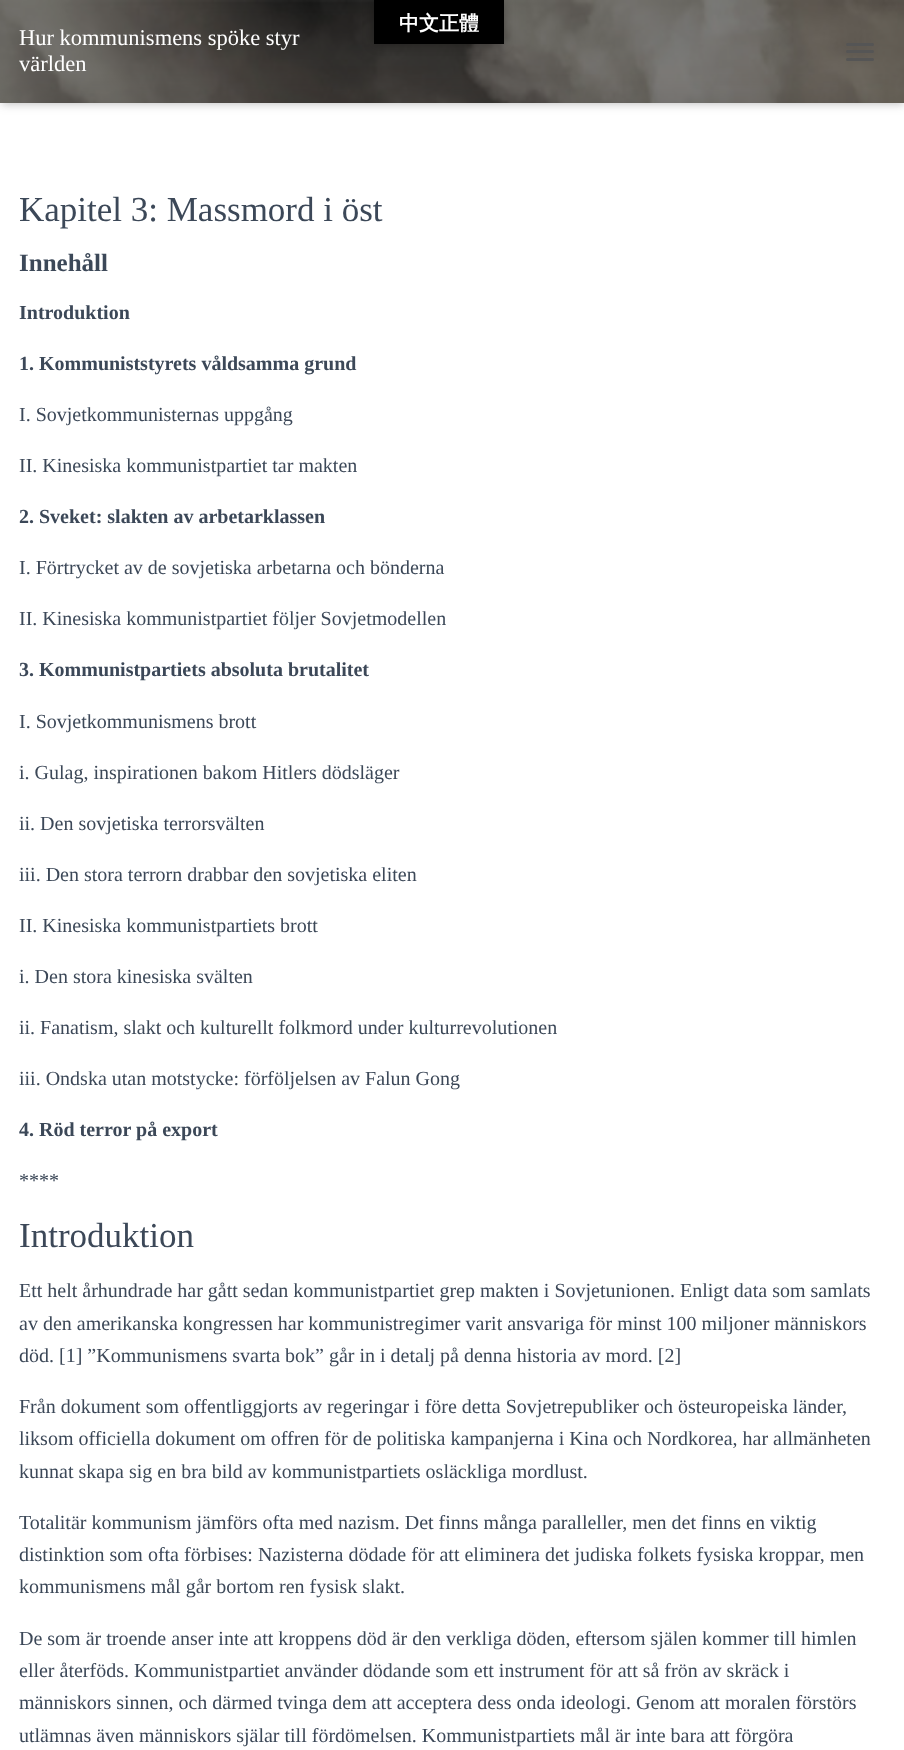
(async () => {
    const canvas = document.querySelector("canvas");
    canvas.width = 904;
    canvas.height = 1750;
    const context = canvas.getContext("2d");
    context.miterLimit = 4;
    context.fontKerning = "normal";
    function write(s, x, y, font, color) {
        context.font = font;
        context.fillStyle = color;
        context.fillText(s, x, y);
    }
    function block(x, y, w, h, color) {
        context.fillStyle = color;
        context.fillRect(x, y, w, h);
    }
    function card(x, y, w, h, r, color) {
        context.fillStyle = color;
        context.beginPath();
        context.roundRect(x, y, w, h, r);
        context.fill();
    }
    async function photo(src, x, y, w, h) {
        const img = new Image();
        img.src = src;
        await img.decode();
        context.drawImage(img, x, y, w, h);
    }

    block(0, 0, 904, 1750, "rgb(255, 255, 255)");
    await photo("media/1.png", 0, 0, 904, 103);
    context.fillStyle = "rgba(0, 0, 0, 0.12)";
    context.filter = "blur(19px)";
    context.beginPath();
    context.rect(-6, 104, 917, 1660);
    context.fill();
    context.filter = "none";
    block(0, 103, 904, 1647, "rgb(255, 255, 255)");
    context.save();
    context.beginPath();
    context.moveTo(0, 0);
    context.lineTo(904, 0);
    context.lineTo(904, 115);
    context.lineTo(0, 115);
    context.closePath();
    context.moveTo(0, 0);
    context.lineTo(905, 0);
    context.lineTo(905, 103);
    context.lineTo(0, 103);
    context.closePath();
    context.clip("evenodd");
    context.fillStyle = "rgba(0, 0, 0, 0.1)";
    context.filter = "blur(3px)";
    context.beginPath();
    context.rect(3, 8, 900, 97);
    context.fill();
    context.filter = "none";
    context.restore();
    context.save();
    context.beginPath();
    context.moveTo(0, 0);
    context.lineTo(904, 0);
    context.lineTo(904, 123);
    context.lineTo(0, 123);
    context.closePath();
    context.moveTo(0, 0);
    context.lineTo(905, 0);
    context.lineTo(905, 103);
    context.lineTo(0, 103);
    context.closePath();
    context.clip("evenodd");
    context.fillStyle = "rgba(0, 0, 0, 0.12)";
    context.filter = "blur(6px)";
    context.beginPath();
    context.rect(0, 1, 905, 103);
    context.fill();
    context.filter = "none";
    context.restore();
    block(0, 0, 904, 103, "rgba(0, 0, 0, 0.5)");
    context.fillStyle = "rgba(0, 0, 0, 0.3)";
    context.filter = "blur(5.5px)";
    context.beginPath();
    context.rect(374, 0, 130, 44);
    context.fill();
    context.filter = "none";
    block(374, 0, 130, 44, "rgb(0, 0, 0)");
    write("中文正體", 399, 30, "bold 20px WenQuanYi Zen Hei", "rgb(255, 255, 255)");
    write("Hur kommunismens spöke styr", 19, 45, "22.5px Liberation Serif", "rgb(255, 255, 255)");
    write("världen", 19, 71, "22.5px Liberation Serif", "rgb(255, 255, 255)");
    card(846, 43, 28, 3, 1.5, "rgb(85, 85, 85)");
    card(846, 50, 28, 3, 1.5, "rgb(85, 85, 85)");
    card(846, 58, 28, 3, 1.5, "rgb(85, 85, 85)");
    write("Kapitel 3: Massmord i öst", 19, 221, "35px Liberation Serif", "rgb(60, 72, 88)");
    write("Innehåll", 19, 271, "bold 25px Liberation Serif", "rgb(60, 72, 88)");
    write("Introduktion", 19, 319, "bold 20px Liberation Serif", "rgb(60, 72, 88)");
    write("1. Kommuniststyrets våldsamma grund", 19, 370, "bold 20px Liberation Serif", "rgb(60, 72, 88)");
    write("I. Sovjetkommunisternas uppgång", 19, 421, "20px Liberation Serif", "rgb(60, 72, 88)");
    write("II. Kinesiska kommunistpartiet tar makten", 19, 472, "20px Liberation Serif", "rgb(60, 72, 88)");
    write("2. Sveket: slakten av arbetarklassen", 19, 523, "bold 20px Liberation Serif", "rgb(60, 72, 88)");
    write("I. Förtrycket av de sovjetiska arbetarna och bönderna", 19, 574, "20px Liberation Serif", "rgb(60, 72, 88)");
    write("II. Kinesiska kommunistpartiet följer Sovjetmodellen", 19, 625, "20px Liberation Serif", "rgb(60, 72, 88)");
    write("3. Kommunistpartiets absoluta brutalitet", 19, 676, "bold 20px Liberation Serif", "rgb(60, 72, 88)");
    write("I. Sovjetkommunismens brott", 19, 728, "20px Liberation Serif", "rgb(60, 72, 88)");
    write("i. Gulag, inspirationen bakom Hitlers dödsläger", 19, 779, "20px Liberation Serif", "rgb(60, 72, 88)");
    write("ii. Den sovjetiska terrorsvälten", 19, 830, "20px Liberation Serif", "rgb(60, 72, 88)");
    write("iii. Den stora terrorn drabbar den sovjetiska eliten", 19, 881, "20px Liberation Serif", "rgb(60, 72, 88)");
    write("II. Kinesiska kommunistpartiets brott", 19, 932, "20px Liberation Serif", "rgb(60, 72, 88)");
    write("i. Den stora kinesiska svälten", 19, 983, "20px Liberation Serif", "rgb(60, 72, 88)");
    write("ii. Fanatism, slakt och kulturellt folkmord under kulturrevolutionen", 19, 1034, "20px Liberation Serif", "rgb(60, 72, 88)");
    write("iii. Ondska utan motstycke: förföljelsen av Falun Gong", 19, 1085, "20px Liberation Serif", "rgb(60, 72, 88)");
    write("4. Röd terror på export", 19, 1136, "bold 20px Liberation Serif", "rgb(60, 72, 88)");
    write("****", 19, 1187, "20px Liberation Serif", "rgb(60, 72, 88)");
    write("Introduktion", 19, 1247, "35px Liberation Serif", "rgb(60, 72, 88)");
    write("Ett helt århundrade har gått sedan kommunistpartiet grep makten i Sovjetunionen. Enligt data som samlats", 19, 1297, "20px Liberation Serif", "rgb(60, 72, 88)");
    write("av den amerikanska kongressen har kommunistregimer varit ansvariga för minst 100 miljoner människors", 19, 1330, "20px Liberation Serif", "rgb(60, 72, 88)");
    write("död. [1] ”Kommunismens svarta bok” går in i detalj på denna historia av mord. [2]", 19, 1362, "20px Liberation Serif", "rgb(60, 72, 88)");
    write("Från dokument som offentliggjorts av regeringar i före detta Sovjetrepubliker och östeuropeiska länder,", 19, 1413, "20px Liberation Serif", "rgb(60, 72, 88)");
    write("liksom officiella dokument om offren för de politiska kampanjerna i Kina och Nordkorea, har allmänheten", 19, 1445, "20px Liberation Serif", "rgb(60, 72, 88)");
    write("kunnat skapa sig en bra bild av kommunistpartiets osläckliga mordlust.", 19, 1478, "20px Liberation Serif", "rgb(60, 72, 88)");
    write("Totalitär kommunism jämförs ofta med nazism. Det finns många paralleller, men det finns en viktig", 19, 1529, "20px Liberation Serif", "rgb(60, 72, 88)");
    write("distinktion som ofta förbises: Nazisterna dödade för att eliminera det judiska folkets fysiska kroppar, men", 19, 1561, "20px Liberation Serif", "rgb(60, 72, 88)");
    write("kommunismens mål går bortom ren fysisk slakt.", 19, 1593, "20px Liberation Serif", "rgb(60, 72, 88)");
    write("De som är troende anser inte att kroppens död är den verkliga döden, eftersom själen kommer till himlen", 19, 1645, "20px Liberation Serif", "rgb(60, 72, 88)");
    write("eller återföds. Kommunistpartiet använder dödande som ett instrument för att så frön av skräck i", 19, 1677, "20px Liberation Serif", "rgb(60, 72, 88)");
    write("människors sinnen, och därmed tvinga dem att acceptera dess onda ideologi. Genom att moralen förstörs", 19, 1709, "20px Liberation Serif", "rgb(60, 72, 88)");
    write("utlämnas även människors själar till fördömelsen. Kommunistpartiets mål är inte bara att förgöra", 19, 1742, "20px Liberation Serif", "rgb(60, 72, 88)");
})();
